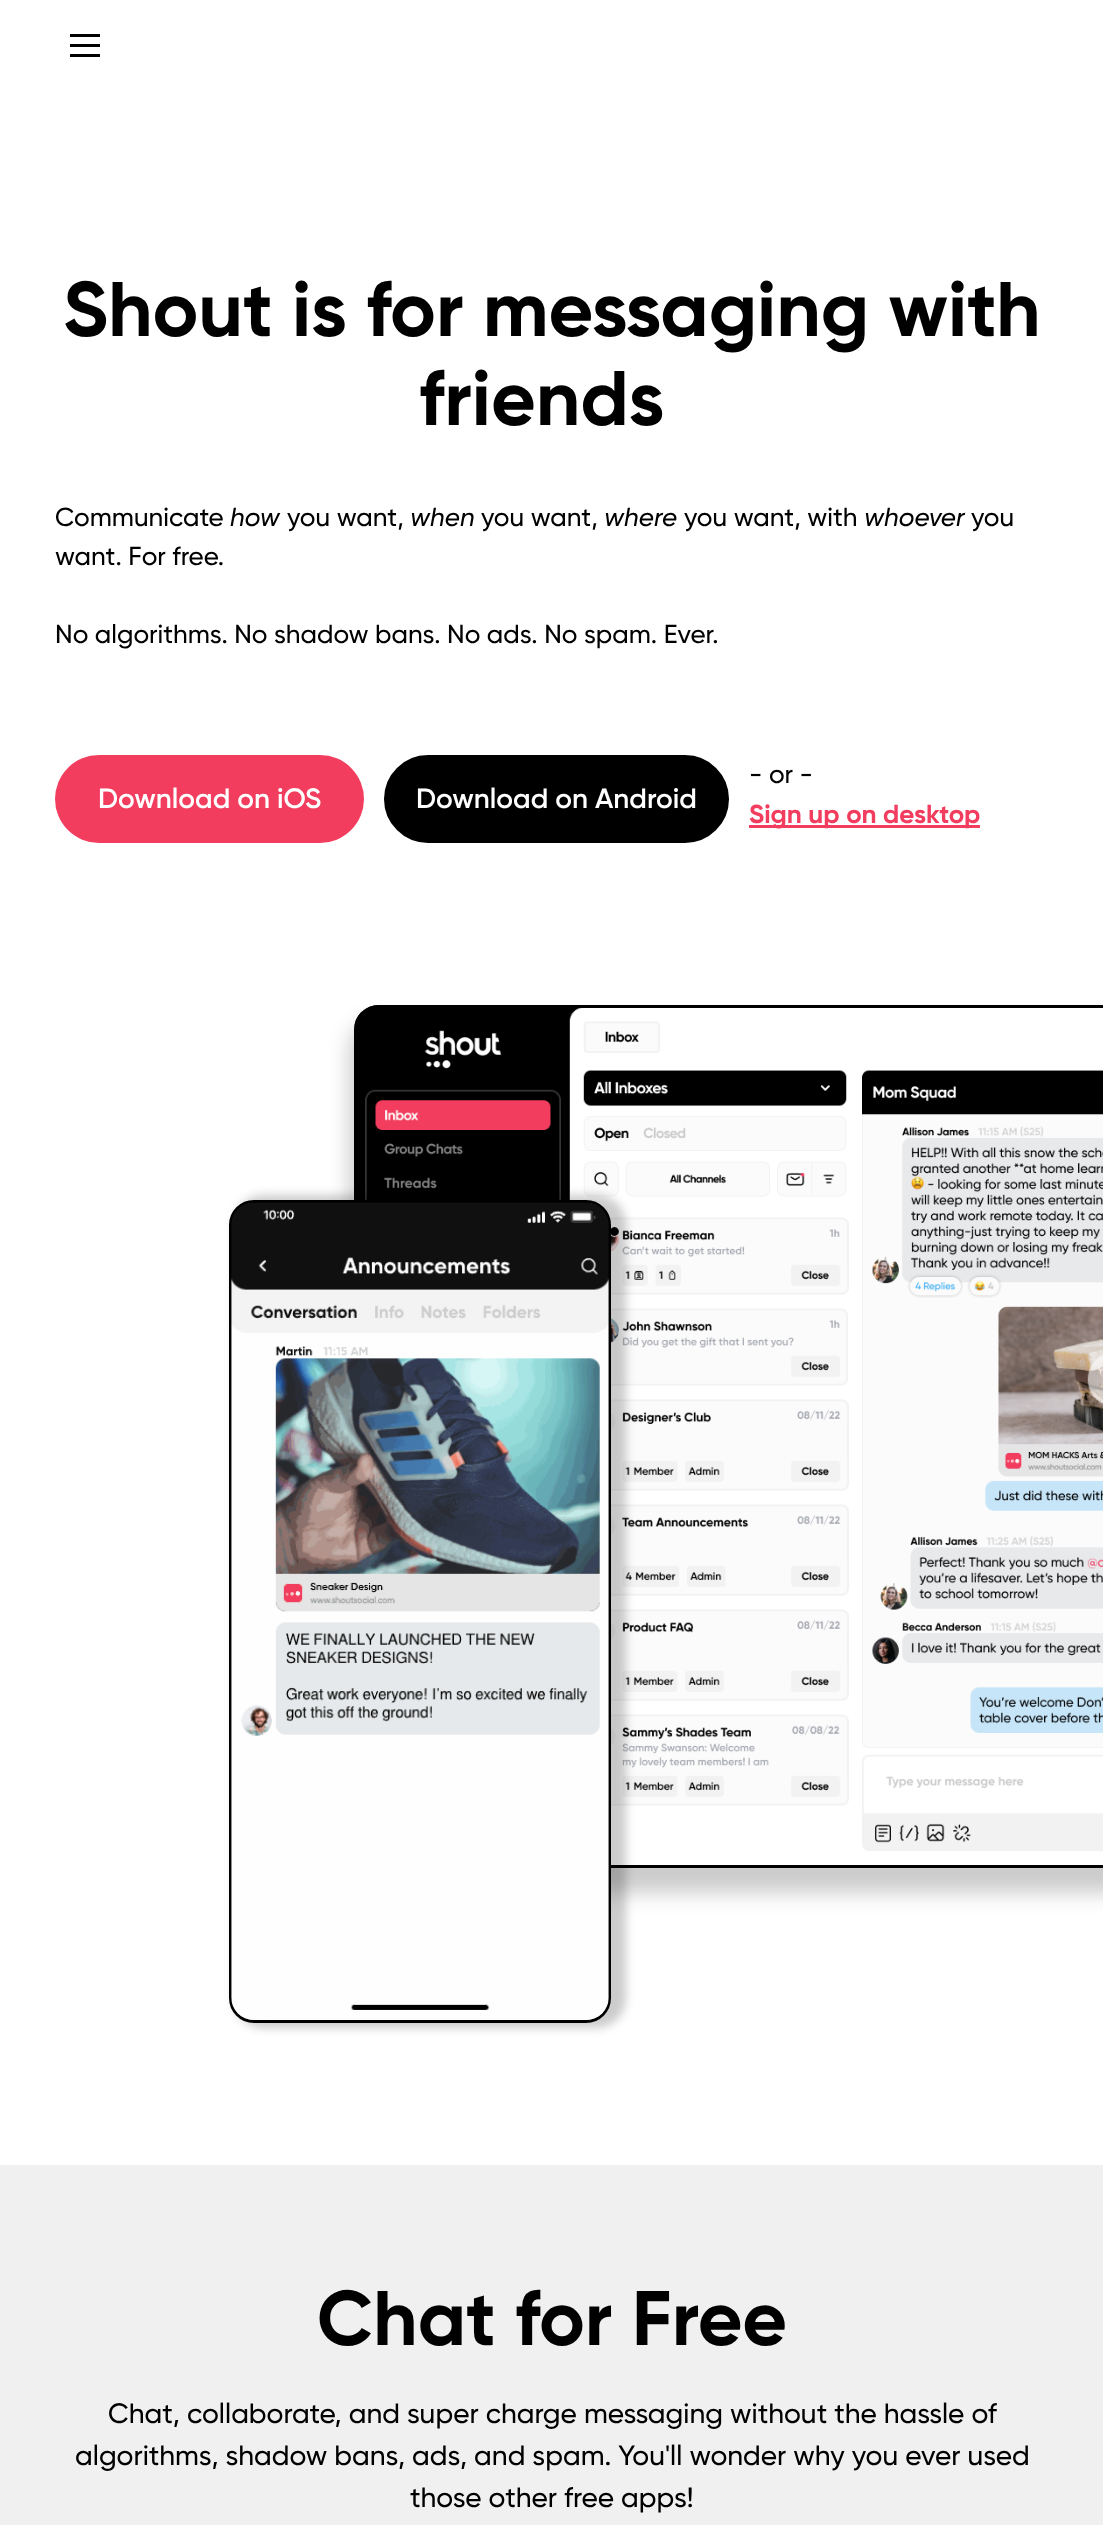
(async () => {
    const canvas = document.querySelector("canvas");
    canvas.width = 1103;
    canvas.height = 2525;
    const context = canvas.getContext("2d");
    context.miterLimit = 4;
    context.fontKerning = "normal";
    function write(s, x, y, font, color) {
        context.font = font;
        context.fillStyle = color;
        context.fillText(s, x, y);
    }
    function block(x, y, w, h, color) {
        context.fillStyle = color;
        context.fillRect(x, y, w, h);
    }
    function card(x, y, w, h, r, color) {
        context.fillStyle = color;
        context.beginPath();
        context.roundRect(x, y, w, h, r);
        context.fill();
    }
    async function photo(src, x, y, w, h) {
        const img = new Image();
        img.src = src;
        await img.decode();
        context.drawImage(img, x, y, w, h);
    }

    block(0, 0, 1103, 2525, "rgb(240, 240, 240)");
    block(0, 0, 1103, 2165, "rgb(255, 255, 255)");
    block(70, 34, 30, 3, "rgb(0, 0, 0)");
    block(70, 44, 30, 3, "rgb(0, 0, 0)");
    block(70, 54, 30, 3, "rgb(0, 0, 0)");
    write("Shout is for messaging with", 63, 336, "bold 77.25px Gilroy", "rgb(0, 0, 0)");
    write("friends", 419, 425, "bold 77.25px Gilroy", "rgb(0, 0, 0)");
    write("Communicate", 55, 526, "500 26px Gilroy", "rgb(0, 0, 0)");
    write("how", 230, 526, "italic 500 26px Gilroy", "rgb(0, 0, 0)");
    write("you want,", 287, 526, "500 26px Gilroy", "rgb(0, 0, 0)");
    write("when", 410, 526, "italic 500 26px Gilroy", "rgb(0, 0, 0)");
    write("you want,", 481, 526, "500 26px Gilroy", "rgb(0, 0, 0)");
    write("where", 604, 526, "italic 500 26px Gilroy", "rgb(0, 0, 0)");
    write("you want, with", 684, 526, "500 26px Gilroy", "rgb(0, 0, 0)");
    write("whoever", 864, 526, "italic 500 26px Gilroy", "rgb(0, 0, 0)");
    write("you", 971, 526, "500 26px Gilroy", "rgb(0, 0, 0)");
    write("want. For free.", 55, 565, "500 26px Gilroy", "rgb(0, 0, 0)");
    write("No algorithms. No shadow bans. No ads. No spam. Ever.", 55, 643, "500 26px Gilroy", "rgb(0, 0, 0)");
    card(55, 755, 309, 88, 44, "rgb(242, 61, 94)");
    write("Download on iOS", 98, 808, "600 28px Gilroy", "rgb(255, 255, 255)");
    context.fillStyle = "rgb(0, 0, 0)";
    context.beginPath();
    context.roundRect(385.5, 756.5, 342, 85, 42.5);
    context.fill();
    context.strokeStyle = "rgb(0, 0, 0)";
    context.lineWidth = 3;
    context.stroke();
    write("Download on Android", 416, 808, "600 28px Gilroy", "rgb(255, 255, 255)");
    write("- or -", 749, 783, "500 26px Gilroy", "rgb(0, 0, 0)");
    block(749, 825, 231, 3, "rgb(242, 61, 94)");
    write("Sign up on desktop", 749, 823, "bold 26px Gilroy", "rgb(242, 61, 94)");
    context.fillStyle = "rgba(0, 0, 0, 0.2)";
    context.filter = "blur(10px)";
    context.beginPath();
    context.roundRect(349, 1020, 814, 873, 30);
    context.fill();
    context.filter = "none";
    await photo("media/1.png", 354, 1005, 749, 860);
    context.beginPath();
    context.roundRect(355.5, 1006.5, 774, 860, 23.5);
    context.stroke();
    context.filter = "blur(5px)";
    context.beginPath();
    context.roundRect(234, 1195, 392, 833, 30);
    context.fill();
    context.filter = "none";
    context.beginPath();
    context.roundRect(230.5, 1201.5, 379, 820, 23.5);
    context.stroke();
    await photo("media/2.png", 231, 1202, 378, 818);
    write("Chat for Free", 317, 2345, "bold 77.25px Gilroy", "rgb(0, 0, 0)");
    write("Chat, collaborate, and super charge messaging without the hassle of", 108, 2423, "500 28px Gilroy", "rgb(0, 0, 0)");
    write("algorithms, shadow bans, ads, and spam. You'll wonder why you ever used", 75, 2465, "500 28px Gilroy", "rgb(0, 0, 0)");
    write("those other free apps!", 410, 2507, "500 28px Gilroy", "rgb(0, 0, 0)");
})();
